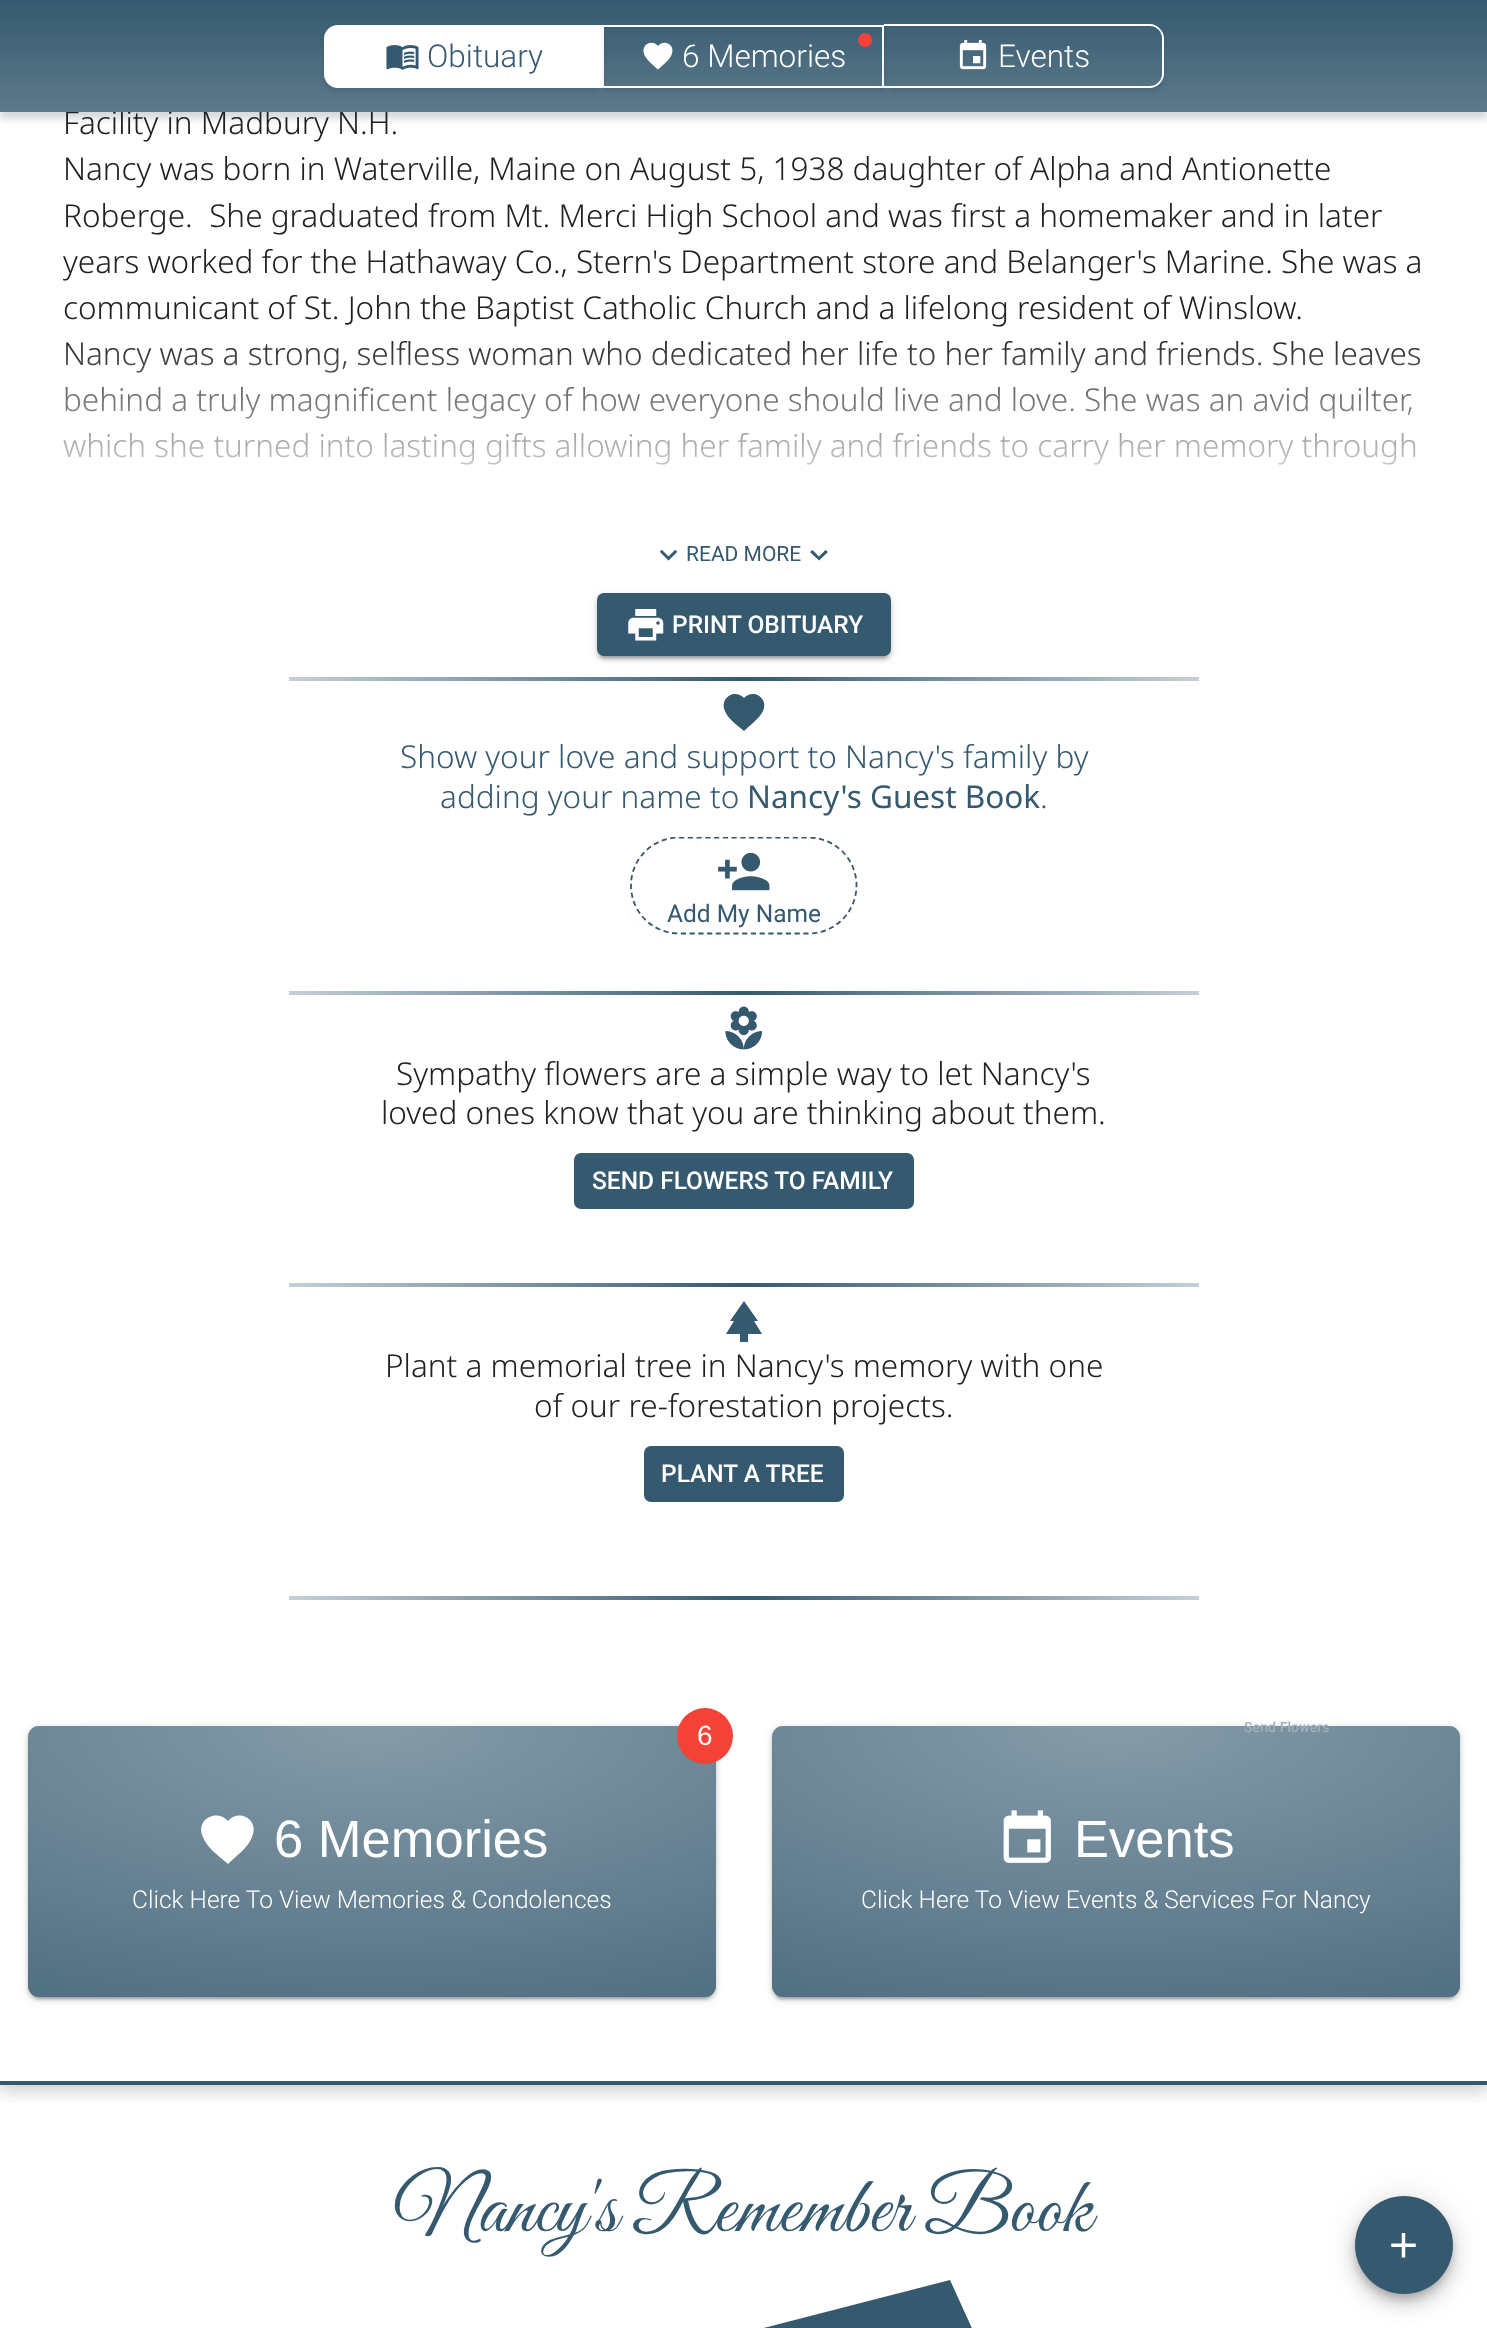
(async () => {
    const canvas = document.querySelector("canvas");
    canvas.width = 1487;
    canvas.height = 2328;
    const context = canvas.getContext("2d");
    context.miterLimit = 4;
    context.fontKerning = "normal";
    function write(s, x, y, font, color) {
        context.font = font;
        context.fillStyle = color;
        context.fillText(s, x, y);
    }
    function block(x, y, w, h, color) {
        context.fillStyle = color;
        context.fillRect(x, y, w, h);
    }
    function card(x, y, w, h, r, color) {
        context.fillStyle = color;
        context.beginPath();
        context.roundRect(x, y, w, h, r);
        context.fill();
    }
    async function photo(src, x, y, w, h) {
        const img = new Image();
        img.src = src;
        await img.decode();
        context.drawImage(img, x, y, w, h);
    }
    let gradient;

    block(0, 0, 1487, 2328, "rgb(255, 255, 255)");
    context.fillStyle = "rgba(0, 0, 0, 0.15)";
    context.filter = "blur(3.5px)";
    context.beginPath();
    context.rect(0, 7, 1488, 112);
    context.fill();
    context.filter = "none";
    context.save();
    context.beginPath();
    context.rect(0, 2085, 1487, 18);
    context.clip();
    context.fillStyle = "rgba(0, 0, 0, 0.25)";
    context.filter = "blur(10.5px)";
    context.beginPath();
    context.rect(-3, -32, 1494, 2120);
    context.fill();
    context.filter = "none";
    context.restore();
    write("Facility in Madbury N.H.", 63, 134, "300 31.5px Noto Sans", "rgb(33, 33, 33)");
    gradient = context.createLinearGradient(744, 0, 744, 112);
    gradient.addColorStop(0, "rgb(53, 89, 111)");
    gradient.addColorStop(1, "rgb(93, 122, 139)");
    context.fillStyle = gradient;
    context.fillRect(0, 0, 1487, 112);
    context.fillStyle = "rgba(0, 0, 0, 0.1)";
    context.filter = "blur(2px)";
    context.beginPath();
    context.roundRect(324, 28, 280, 63, 14);
    context.fill();
    context.filter = "none";
    context.fillStyle = "rgb(255, 255, 255)";
    context.beginPath();
    context.roundRect(325, 26, 278, 61, [13, 0, 0, 13]);
    context.fill();
    context.strokeStyle = "rgb(255, 255, 255)";
    context.lineWidth = 2;
    context.stroke();
    await photo("media/1.png", 386, 45, 33, 25);
    write("Obituary", 427, 67, "300 31.5px Roboto", "rgb(53, 89, 111)");
    context.save();
    context.beginPath();
    context.moveTo(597, 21);
    context.lineTo(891, 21);
    context.lineTo(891, 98);
    context.lineTo(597, 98);
    context.closePath();
    context.moveTo(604, 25);
    context.lineTo(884, 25);
    context.lineTo(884, 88);
    context.lineTo(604, 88);
    context.closePath();
    context.clip("evenodd");
    context.fillStyle = "rgba(0, 0, 0, 0.1)";
    context.filter = "blur(2px)";
    context.beginPath();
    context.rect(604, 28, 280, 63);
    context.fill();
    context.filter = "none";
    context.restore();
    block(604, 25, 280, 2, "rgb(255, 255, 255)");
    block(882, 25, 2, 63, "rgb(255, 255, 255)");
    block(604, 86, 280, 2, "rgb(255, 255, 255)");
    context.fillStyle = "rgb(244, 67, 54)";
    context.beginPath();
    context.arc(865, 40, 7, 0, Math.PI * 2);
    context.fill();
    context.fillStyle = "rgb(255, 255, 255)";
    context.beginPath();
    context.moveTo(658, 69.5);
    context.bezierCurveTo(653.5, 65.5, 647, 60.5, 644.5, 55);
    context.bezierCurveTo(640, 45.5, 651.5, 38.5, 658, 46);
    context.bezierCurveTo(664.5, 38.5, 676, 45.5, 671.5, 55);
    context.bezierCurveTo(669, 60.5, 662.5, 65.5, 658, 69.5);
    context.closePath();
    context.fill();
    write("6 Memories", 682, 67, "300 31.5px Roboto", "rgb(255, 255, 255)");
    context.save();
    context.beginPath();
    context.moveTo(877, 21);
    context.lineTo(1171, 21);
    context.lineTo(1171, 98);
    context.lineTo(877, 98);
    context.closePath();
    context.moveTo(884, 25);
    context.lineTo(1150, 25);
    context.bezierCurveTo(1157.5, 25, 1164, 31.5, 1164, 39);
    context.lineTo(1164, 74);
    context.bezierCurveTo(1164, 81.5, 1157.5, 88, 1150, 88);
    context.lineTo(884, 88);
    context.closePath();
    context.clip("evenodd");
    context.fillStyle = "rgba(0, 0, 0, 0.1)";
    context.filter = "blur(2px)";
    context.beginPath();
    context.roundRect(884, 28, 280, 63, 14);
    context.fill();
    context.filter = "none";
    context.restore();
    context.beginPath();
    context.moveTo(884, 24);
    context.lineTo(1150, 24);
    context.bezierCurveTo(1157, 24, 1164, 31, 1164, 38);
    context.lineTo(1164, 74);
    context.bezierCurveTo(1164, 81, 1157, 88, 1150, 88);
    context.lineTo(884, 88);
    context.closePath();
    context.moveTo(884, 26);
    context.lineTo(1150, 26);
    context.bezierCurveTo(1157, 26, 1162, 32, 1162, 38);
    context.lineTo(1162, 74);
    context.bezierCurveTo(1162, 80, 1157, 86, 1150, 86);
    context.lineTo(884, 86);
    context.closePath();
    context.fill("evenodd");
    await photo("media/2.png", 959, 39, 28, 31);
    write("Events", 998, 67, "300 31.5px Roboto", "rgb(255, 255, 255)");
    block(0, 2081, 1487, 4, "rgb(53, 89, 111)");
    write("Nancy was born in Waterville, Maine on August 5, 1938 daughter of Alpha and Antionette", 63, 180, "300 31.5px Noto Sans", "rgb(33, 33, 33)");
    write("Roberge.  She graduated from Mt. Merci High School and was first a homemaker and in later", 63, 227, "300 31.5px Noto Sans", "rgb(33, 33, 33)");
    write("years worked for the Hathaway Co., Stern's Department store and Belanger's Marine. She was a", 63, 273, "300 31.5px Noto Sans", "rgb(33, 33, 33)");
    write("communicant of St. John the Baptist Catholic Church and a lifelong resident of Winslow.", 63, 319, "300 31.5px Noto Sans", "rgb(33, 33, 33)");
    write("Nancy was a strong, selfless woman who dedicated her life to her family and friends. She leaves", 63, 365, "300 31.5px Noto Sans", "rgb(33, 33, 33)");
    write("behind a truly magnificent legacy of how everyone should live and love. She was an avid quilter,", 63, 411, "300 31.5px Noto Sans", "rgb(33, 33, 33)");
    write("which she turned into lasting gifts allowing her family and friends to carry her memory through", 63, 457, "300 31.5px Noto Sans", "rgb(33, 33, 33)");
    gradient = context.createLinearGradient(744, 509, 744, 334);
    gradient.addColorStop(0, "rgb(255, 255, 255)");
    gradient.addColorStop(1, "rgba(255, 255, 255, 0)");
    context.fillStyle = gradient;
    context.fillRect(63, 341, 1358, 124);
    await photo("media/3.png", 659, 549, 19, 12);
    write("READ MORE", 686, 561, "21px Roboto", "rgb(53, 89, 111)");
    context.beginPath();
    context.moveTo(825.5, 550);
    context.lineTo(819, 556.5);
    context.lineTo(812.5, 550);
    context.lineTo(810, 552);
    context.lineTo(819, 560.5);
    context.lineTo(828, 552);
    context.closePath();
    context.fill();
    context.fillStyle = "rgba(0, 0, 0, 0.12)";
    context.filter = "blur(4.5px)";
    context.beginPath();
    context.roundRect(597, 595, 294, 63, 7);
    context.fill();
    context.filter = "none";
    context.fillStyle = "rgba(0, 0, 0, 0.14)";
    context.filter = "blur(2px)";
    context.beginPath();
    context.roundRect(597, 597, 294, 63, 7);
    context.fill();
    context.filter = "none";
    context.fillStyle = "rgba(0, 0, 0, 0.2)";
    context.filter = "blur(1px)";
    context.beginPath();
    context.roundRect(600, 602, 287, 56, 4);
    context.fill();
    context.filter = "none";
    card(597, 593, 294, 63, 7, "rgb(53, 89, 111)");
    await photo("media/4.png", 628, 609, 36, 32);
    write("PRINT OBITUARY", 672, 633, "500 24.5px Roboto", "rgb(255, 255, 255)");
    gradient = context.createLinearGradient(1381, 679, 107, 679);
    gradient.addColorStop(0, "rgb(255, 255, 255)");
    gradient.addColorStop(0.5, "rgb(53, 89, 111)");
    gradient.addColorStop(1, "rgb(255, 255, 255)");
    context.fillStyle = gradient;
    context.fillRect(289, 677, 910, 4);
    context.fillStyle = "rgb(53, 89, 111)";
    context.beginPath();
    context.moveTo(744, 731);
    context.bezierCurveTo(737, 725, 728, 719, 725, 711);
    context.bezierCurveTo(719, 698, 735, 688, 744, 698);
    context.bezierCurveTo(753, 688, 769, 698, 763, 711);
    context.bezierCurveTo(759, 719, 750, 725, 744, 731);
    context.closePath();
    context.fill();
    write("Show your love and support to Nancy's family by", 400, 768, "300 31.5px Noto Sans", "rgb(53, 89, 111)");
    write("adding your name to", 440, 808, "300 31.5px Noto Sans", "rgb(53, 89, 111)");
    write("Nancy's Guest Book", 747, 808, "31.5px Noto Sans", "rgb(53, 89, 111)");
    write(".", 1040, 808, "300 31.5px Noto Sans", "rgb(53, 89, 111)");
    context.save();
    context.beginPath();
    context.rect(602, 837, 284, 126);
    context.clip();
    context.beginPath();
    context.moveTo(679, 837.5);
    context.lineTo(808.5, 837.5);
    context.bezierCurveTo(835, 837.5, 856.5, 859, 856.5, 885.5);
    context.bezierCurveTo(856.5, 912, 835, 933.5, 808.5, 933.5);
    context.lineTo(679, 933.5);
    context.bezierCurveTo(652.5, 933.5, 631, 912, 631, 885.5);
    context.bezierCurveTo(631, 859, 652.5, 837.5, 679, 837.5);
    context.closePath();
    context.strokeStyle = "rgb(53, 89, 111)";
    context.lineWidth = 1.8;
    context.setLineDash([5.25, 3.5]);
    context.stroke();
    context.restore();
    await photo("media/5.png", 718, 852, 52, 39);
    write("Add My Name", 667, 922, "24.5px Roboto", "rgb(53, 89, 111)");
    gradient = context.createLinearGradient(1381, 992, 107, 992);
    gradient.addColorStop(0, "rgb(255, 255, 255)");
    gradient.addColorStop(0.5, "rgb(53, 89, 111)");
    gradient.addColorStop(1, "rgb(255, 255, 255)");
    context.fillStyle = gradient;
    context.fillRect(289, 991, 910, 4);
    await photo("media/6.png", 725, 1006, 38, 44);
    write("Sympathy flowers are a simple way to let Nancy's", 396, 1085, "300 31.5px Noto Sans", "rgb(33, 33, 33)");
    write("loved ones know that you are thinking about them.", 381, 1124, "300 31.5px Noto Sans", "rgb(33, 33, 33)");
    card(574, 1153, 340, 56, 7, "rgb(53, 89, 111)");
    write("SEND FLOWERS TO FAMILY", 592, 1189, "500 24.5px Roboto", "rgb(255, 255, 255)");
    gradient = context.createLinearGradient(1381, 1285, 107, 1285);
    gradient.addColorStop(0, "rgb(255, 255, 255)");
    gradient.addColorStop(0.5, "rgb(53, 89, 111)");
    gradient.addColorStop(1, "rgb(255, 255, 255)");
    context.fillStyle = gradient;
    context.fillRect(289, 1283, 910, 4);
    context.fillStyle = "rgb(53, 89, 111)";
    context.beginPath();
    context.moveTo(754, 1321);
    context.lineTo(758, 1321);
    context.lineTo(744, 1301);
    context.lineTo(730, 1321);
    context.lineTo(734, 1321);
    context.lineTo(726, 1334);
    context.lineTo(740, 1334);
    context.lineTo(740, 1342);
    context.lineTo(748, 1342);
    context.lineTo(748, 1334);
    context.lineTo(762, 1334);
    context.closePath();
    context.fill();
    write("Plant a memorial tree in Nancy's memory with one", 385, 1377, "300 31.5px Noto Sans", "rgb(33, 33, 33)");
    write("of our re-forestation projects.", 534, 1417, "300 31.5px Noto Sans", "rgb(33, 33, 33)");
    card(644, 1446, 200, 56, 7, "rgb(53, 89, 111)");
    write("PLANT A TREE", 661, 1482, "500 24.5px Roboto", "rgb(255, 255, 255)");
    gradient = context.createLinearGradient(1381, 1598, 107, 1598);
    gradient.addColorStop(0, "rgb(255, 255, 255)");
    gradient.addColorStop(0.5, "rgb(53, 89, 111)");
    gradient.addColorStop(1, "rgb(255, 255, 255)");
    context.fillStyle = gradient;
    context.fillRect(289, 1596, 910, 4);
    context.fillStyle = "rgba(0, 0, 0, 0.12)";
    context.filter = "blur(4.5px)";
    context.beginPath();
    context.roundRect(28, 1727, 688, 272, 11);
    context.fill();
    context.filter = "none";
    context.fillStyle = "rgba(0, 0, 0, 0.14)";
    context.filter = "blur(2px)";
    context.beginPath();
    context.roundRect(28, 1729, 688, 271, 11);
    context.fill();
    context.filter = "none";
    context.fillStyle = "rgba(0, 0, 0, 0.2)";
    context.filter = "blur(1px)";
    context.beginPath();
    context.roundRect(32, 1734, 680, 265, 7);
    context.fill();
    context.filter = "none";
    card(28, 1726, 688, 271, 11, "rgb(53, 89, 111)");
    gradient = context.createRadialGradient(372, 4379.07, 0, 372, 4379.07, 1162);
    gradient.addColorStop(0, "rgba(255, 255, 255, 0.4)");
    gradient.addColorStop(1, "rgba(255, 255, 255, 0)");
    context.fillStyle = gradient;
    context.beginPath();
    context.roundRect(28, 1726, 688, 271, 11);
    context.save();
    context.clip();
    context.scale(1, 458 / 1162);
    context.fillRect(0, 0, 1487, 5907);
    context.restore();
    context.fillStyle = "rgb(244, 67, 54)";
    context.beginPath();
    context.arc(705, 1736, 28, 0, Math.PI * 2);
    context.fill();
    write("6", 697, 1745, "28px Liberation Sans", "rgb(255, 255, 255)");
    context.beginPath();
    context.moveTo(228, 1864);
    context.bezierCurveTo(219, 1856, 207, 1848, 203, 1837);
    context.bezierCurveTo(195, 1820, 216, 1808, 228, 1821);
    context.bezierCurveTo(239, 1808, 260, 1820, 252, 1837);
    context.bezierCurveTo(248, 1848, 236, 1856, 228, 1864);
    context.closePath();
    context.fill();
    write("6 Memories", 274, 1857, "52.5px Liberation Sans", "rgb(255, 255, 255)");
    write("Click Here To View Memories & Condolences", 132, 1908, "300 24.5px Roboto", "rgb(255, 255, 255)");
    context.fillStyle = "rgba(0, 0, 0, 0.12)";
    context.filter = "blur(4.5px)";
    context.beginPath();
    context.roundRect(772, 1727, 688, 272, 11);
    context.fill();
    context.filter = "none";
    context.fillStyle = "rgba(0, 0, 0, 0.14)";
    context.filter = "blur(2px)";
    context.beginPath();
    context.roundRect(772, 1729, 688, 271, 11);
    context.fill();
    context.filter = "none";
    context.fillStyle = "rgba(0, 0, 0, 0.2)";
    context.filter = "blur(1px)";
    context.beginPath();
    context.roundRect(775, 1734, 681, 265, 7);
    context.fill();
    context.filter = "none";
    card(772, 1726, 688, 271, 11, "rgb(53, 89, 111)");
    gradient = context.createRadialGradient(1116, 4379.07, 0, 1116, 4379.07, 1162);
    gradient.addColorStop(0, "rgba(255, 255, 255, 0.4)");
    gradient.addColorStop(1, "rgba(255, 255, 255, 0)");
    context.fillStyle = gradient;
    context.beginPath();
    context.roundRect(772, 1726, 688, 271, 11);
    context.save();
    context.clip();
    context.scale(1, 458 / 1162);
    context.fillRect(0, 0, 1487, 5907);
    context.restore();
    await photo("media/7.png", 1003, 1810, 48, 53);
    write("Events", 1074, 1857, "52.5px Liberation Sans", "rgb(255, 255, 255)");
    write("Click Here To View Events & Services For Nancy", 861, 1908, "300 24.5px Roboto", "rgb(255, 255, 255)");
    write("Nancy's Remember Book", 395, 2231, "80.5px Great Vibes", "rgb(53, 89, 111)");
    context.beginPath();
    context.moveTo(391, 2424);
    context.lineTo(950, 2280);
    context.lineTo(1097, 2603);
    context.lineTo(538, 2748);
    context.closePath();
    context.fill();
    context.letterSpacing = "0.1px";
    write("Send Flowers", 1244, 1732, "500 14px Roboto", "rgb(160, 177, 187)");
    context.fillStyle = "rgba(0, 0, 0, 0.12)";
    context.filter = "blur(16px)";
    context.beginPath();
    context.roundRect(1355, 2198, 98, 98, 49);
    context.fill();
    context.filter = "none";
    context.fillStyle = "rgba(0, 0, 0, 0.14)";
    context.filter = "blur(9px)";
    context.beginPath();
    context.roundRect(1355, 2207, 98, 98, 49);
    context.fill();
    context.filter = "none";
    context.fillStyle = "rgba(0, 0, 0, 0.2)";
    context.filter = "blur(4.5px)";
    context.beginPath();
    context.roundRect(1356, 2203, 95, 95, 47.5);
    context.fill();
    context.filter = "none";
    context.fillStyle = "rgb(53, 89, 111)";
    context.beginPath();
    context.arc(1404, 2245, 49, 0, Math.PI * 2);
    context.fill();
    await photo("media/8.png", 1391, 2233, 25, 25);
})();
